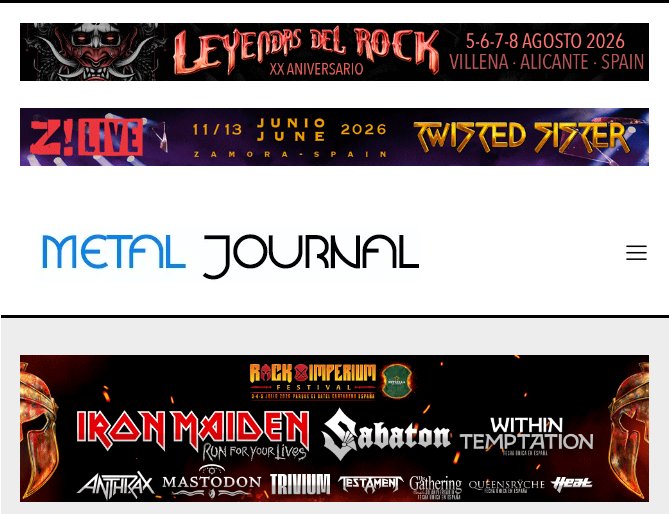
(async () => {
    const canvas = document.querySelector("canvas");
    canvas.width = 669;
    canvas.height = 514;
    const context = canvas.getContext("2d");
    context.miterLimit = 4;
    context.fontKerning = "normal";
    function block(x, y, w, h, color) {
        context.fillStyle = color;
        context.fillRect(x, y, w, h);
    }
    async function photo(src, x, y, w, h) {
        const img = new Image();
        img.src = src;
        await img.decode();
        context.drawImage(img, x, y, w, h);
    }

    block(0, 0, 669, 514, "rgb(255, 255, 255)");
    block(0, 0, 669, 3, "rgb(0, 0, 0)");
    await photo("media/1.png", 20, 23, 629, 58);
    await photo("media/2.png", 20, 108, 629, 58);
    await photo("media/3.png", 36, 227, 384, 56);
    await photo("media/4.png", 626, 245, 21, 15);
    block(1, 318, 668, 196, "rgb(237, 237, 237)");
    block(1, 315, 668, 3, "rgb(0, 0, 0)");
    await photo("media/5.png", 20, 355, 629, 147);
})();
